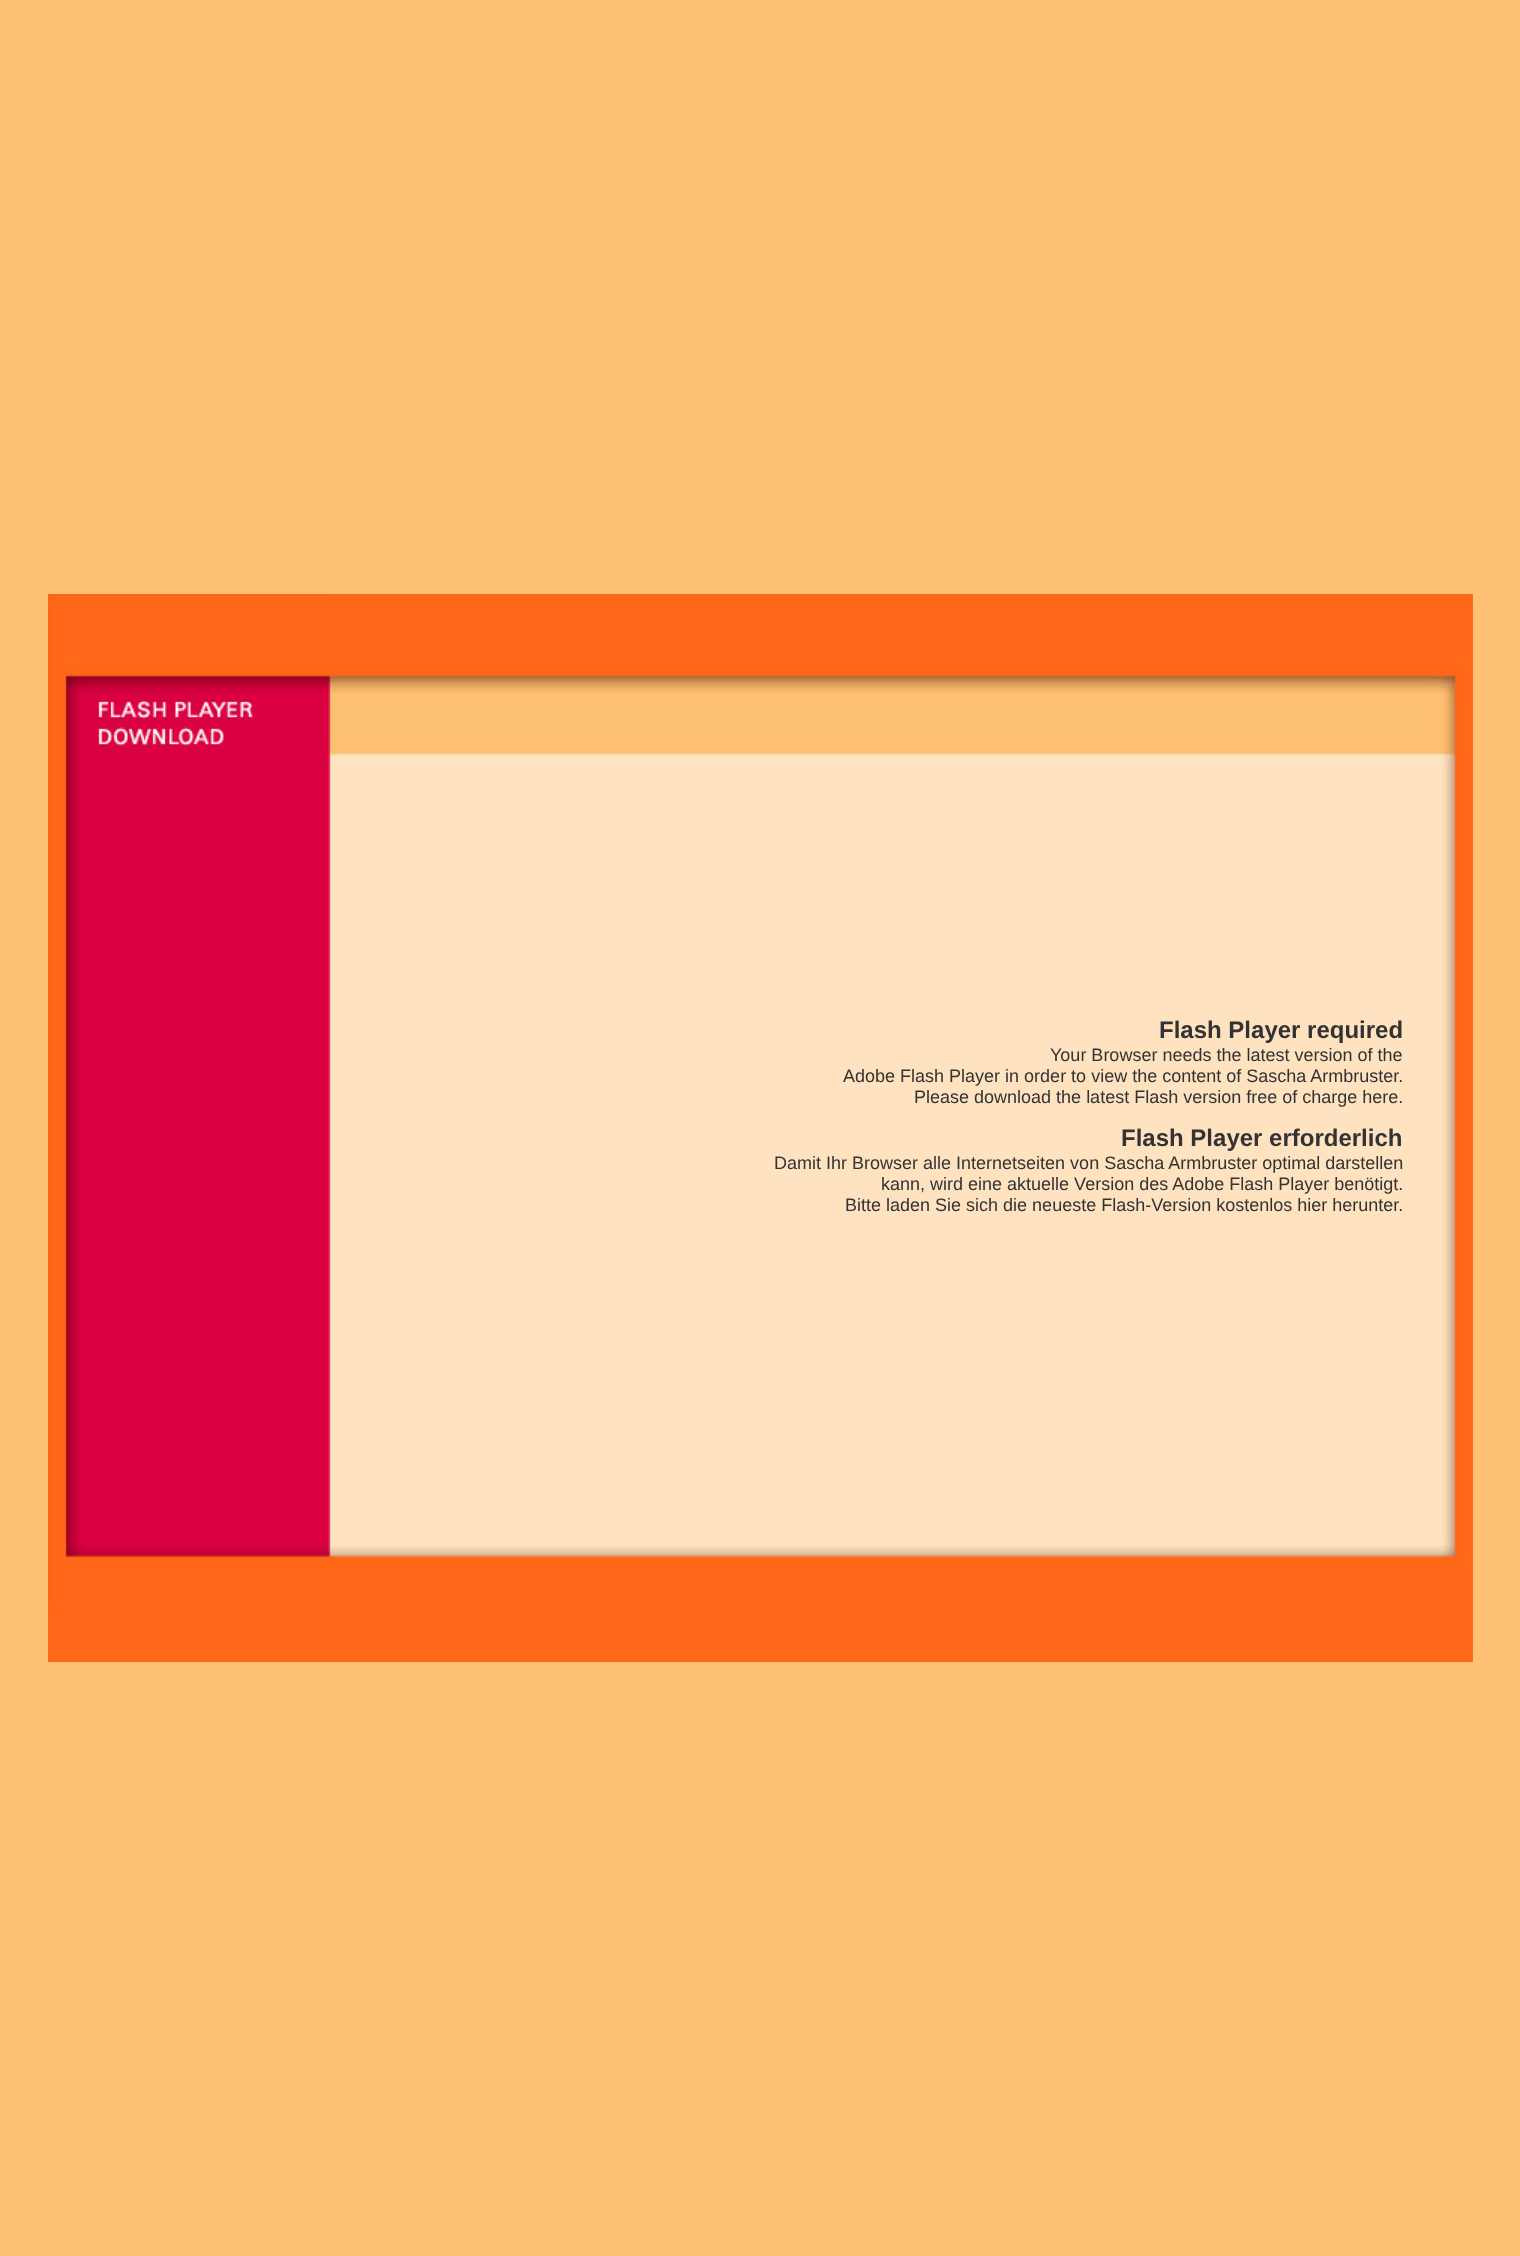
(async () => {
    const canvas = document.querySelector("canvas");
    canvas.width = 1520;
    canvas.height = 2256;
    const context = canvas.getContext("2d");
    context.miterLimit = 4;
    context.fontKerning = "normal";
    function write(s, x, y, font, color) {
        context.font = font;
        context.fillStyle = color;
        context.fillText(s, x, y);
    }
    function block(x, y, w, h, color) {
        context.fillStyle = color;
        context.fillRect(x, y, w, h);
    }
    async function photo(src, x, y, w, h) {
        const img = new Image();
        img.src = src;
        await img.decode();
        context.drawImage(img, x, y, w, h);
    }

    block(0, 0, 1520, 2256, "rgb(255, 193, 116)");
    await photo("media/1.png", 48, 594, 1425, 1068);
    write("Flash Player required", 1159, 1038, "bold 24px Liberation Sans", "rgb(51, 51, 51)");
    write("Your Browser needs the latest version of the", 1050, 1061, "18px Liberation Sans", "rgb(51, 51, 51)");
    write("Adobe Flash Player in order to view the content of Sascha Armbruster.", 843, 1082, "18px Liberation Sans", "rgb(51, 51, 51)");
    write("Please download the latest Flash version free of charge here.", 914, 1103, "18px Liberation Sans", "rgb(51, 51, 51)");
    write("Flash Player erforderlich", 1121, 1146, "bold 24px Liberation Sans", "rgb(51, 51, 51)");
    write("Damit Ihr Browser alle Internetseiten von Sascha Armbruster optimal darstellen", 774, 1169, "18px Liberation Sans", "rgb(51, 51, 51)");
    write("kann, wird eine aktuelle Version des Adobe Flash Player benötigt.", 881, 1190, "18px Liberation Sans", "rgb(51, 51, 51)");
    write("Bitte laden Sie sich die neueste Flash-Version kostenlos hier herunter.", 845, 1211, "18px Liberation Sans", "rgb(51, 51, 51)");
})();
